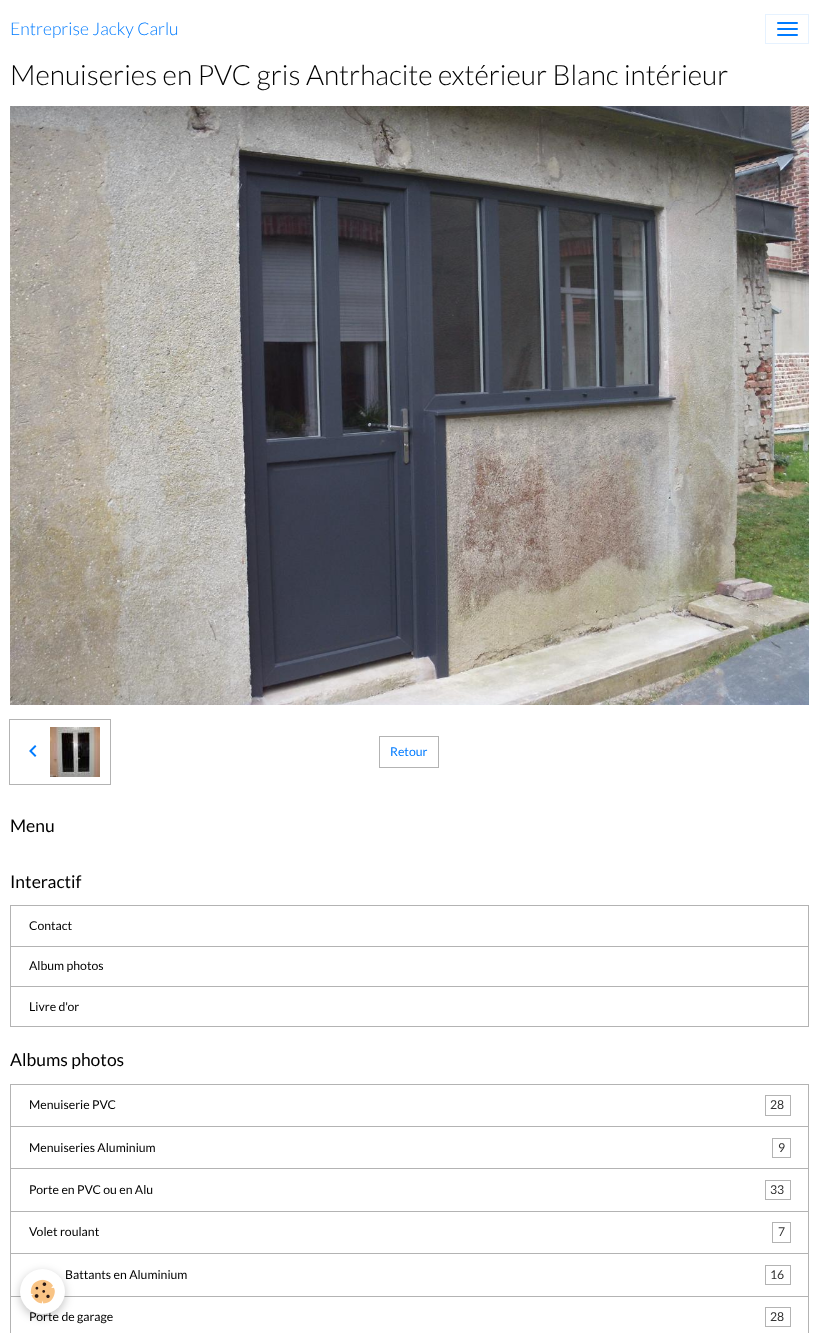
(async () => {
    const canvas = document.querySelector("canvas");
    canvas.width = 819;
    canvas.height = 1333;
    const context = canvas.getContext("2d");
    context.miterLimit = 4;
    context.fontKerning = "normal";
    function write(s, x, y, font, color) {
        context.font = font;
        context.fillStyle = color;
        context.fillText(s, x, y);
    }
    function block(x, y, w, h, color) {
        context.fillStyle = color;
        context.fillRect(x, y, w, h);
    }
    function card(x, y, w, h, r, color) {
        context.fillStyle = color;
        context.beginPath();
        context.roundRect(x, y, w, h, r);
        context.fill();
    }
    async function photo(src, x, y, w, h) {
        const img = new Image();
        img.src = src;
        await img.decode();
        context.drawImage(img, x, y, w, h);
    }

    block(0, 0, 819, 1333, "rgb(255, 255, 255)");
    write("Entreprise Jacky Carlu", 10, 35, "300 17.5px Lato", "rgb(0, 123, 255)");
    context.strokeStyle = "rgb(230, 242, 255)";
    context.strokeRect(765.5, 14.5, 43, 29);
    card(777, 22, 21, 2, 1, "rgb(0, 123, 255)");
    card(777, 28, 21, 2, 1, "rgb(0, 123, 255)");
    card(777, 34, 21, 2, 1, "rgb(0, 123, 255)");
    write("Menuiseries en PVC gris Antrhacite extérieur Blanc intérieur", 10, 85, "300 28px Lato", "rgb(0, 0, 0)");
    await photo("media/1.png", 10, 106, 799, 599);
    context.strokeStyle = "rgb(179, 179, 179)";
    context.strokeRect(9.5, 719.5, 101, 65);
    await photo("media/2.png", 29, 745, 8, 12);
    await photo("media/3.png", 50, 727, 50, 50);
    context.strokeRect(379.5, 736.5, 59, 31);
    write("Retour", 390, 756, "12.25px Lato", "rgb(0, 123, 255)");
    write("Menu", 10, 832, "17.5px Lato", "rgb(0, 0, 0)");
    write("Interactif", 10, 888, "17.5px Lato", "rgb(0, 0, 0)");
    context.strokeRect(10.5, 905.5, 798, 41);
    write("Contact", 29, 930, "12.25px Lato", "rgb(0, 0, 0)");
    context.strokeRect(10.5, 946.5, 798, 40);
    write("Album photos", 29, 970, "12.25px Lato", "rgb(0, 0, 0)");
    context.strokeRect(10.5, 986.5, 798, 40);
    write("Livre d'or", 29, 1011, "12.25px Lato", "rgb(0, 0, 0)");
    write("Albums photos", 10, 1066, "17.5px Lato", "rgb(0, 0, 0)");
    context.strokeRect(10.5, 1084.5, 798, 42);
    write("Menuiserie PVC", 29, 1109, "12.25px Lato", "rgb(0, 0, 0)");
    context.strokeRect(765.5, 1095.5, 25, 20);
    write("28", 770, 1109, "12.25px Lato", "rgb(51, 51, 51)");
    context.strokeRect(10.5, 1126.5, 798, 42);
    write("Menuiseries Aluminium", 29, 1152, "12.25px Lato", "rgb(0, 0, 0)");
    context.strokeRect(772.5, 1138.5, 18, 19);
    write("9", 778, 1152, "12.25px Lato", "rgb(51, 51, 51)");
    context.strokeRect(10.5, 1168.5, 798, 43);
    write("Porte en PVC ou en Alu", 29, 1194, "12.25px Lato", "rgb(0, 0, 0)");
    context.strokeRect(765.5, 1180.5, 25, 19);
    write("33", 770, 1194, "12.25px Lato", "rgb(51, 51, 51)");
    context.strokeRect(10.5, 1211.5, 798, 42);
    write("Volet roulant", 29, 1236, "12.25px Lato", "rgb(0, 0, 0)");
    context.strokeRect(772.5, 1222.5, 18, 20);
    write("7", 778, 1236, "12.25px Lato", "rgb(51, 51, 51)");
    context.strokeRect(10.5, 1253.5, 798, 43);
    write("Battants en Aluminium", 65, 1279, "12.25px Lato", "rgb(0, 0, 0)");
    context.strokeRect(765.5, 1265.5, 25, 19);
    write("16", 770, 1279, "12.25px Lato", "rgb(51, 51, 51)");
    context.strokeRect(10.5, 1296.5, 798, 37);
    write("Porte de garage", 29, 1321, "12.25px Lato", "rgb(0, 0, 0)");
    context.strokeRect(765.5, 1307.5, 25, 19);
    write("28", 770, 1321, "12.25px Lato", "rgb(51, 51, 51)");
    context.fillStyle = "rgba(0, 0, 0, 0.24)";
    context.filter = "blur(5px)";
    context.beginPath();
    context.roundRect(20, 1272, 45, 45, 22.5);
    context.fill();
    context.filter = "none";
    context.fillStyle = "rgb(255, 255, 255)";
    context.beginPath();
    context.arc(42.5, 1291.5, 22.5, 0, Math.PI * 2);
    context.fill();
    await photo("media/4.png", 30, 1279, 25, 25);
})();
